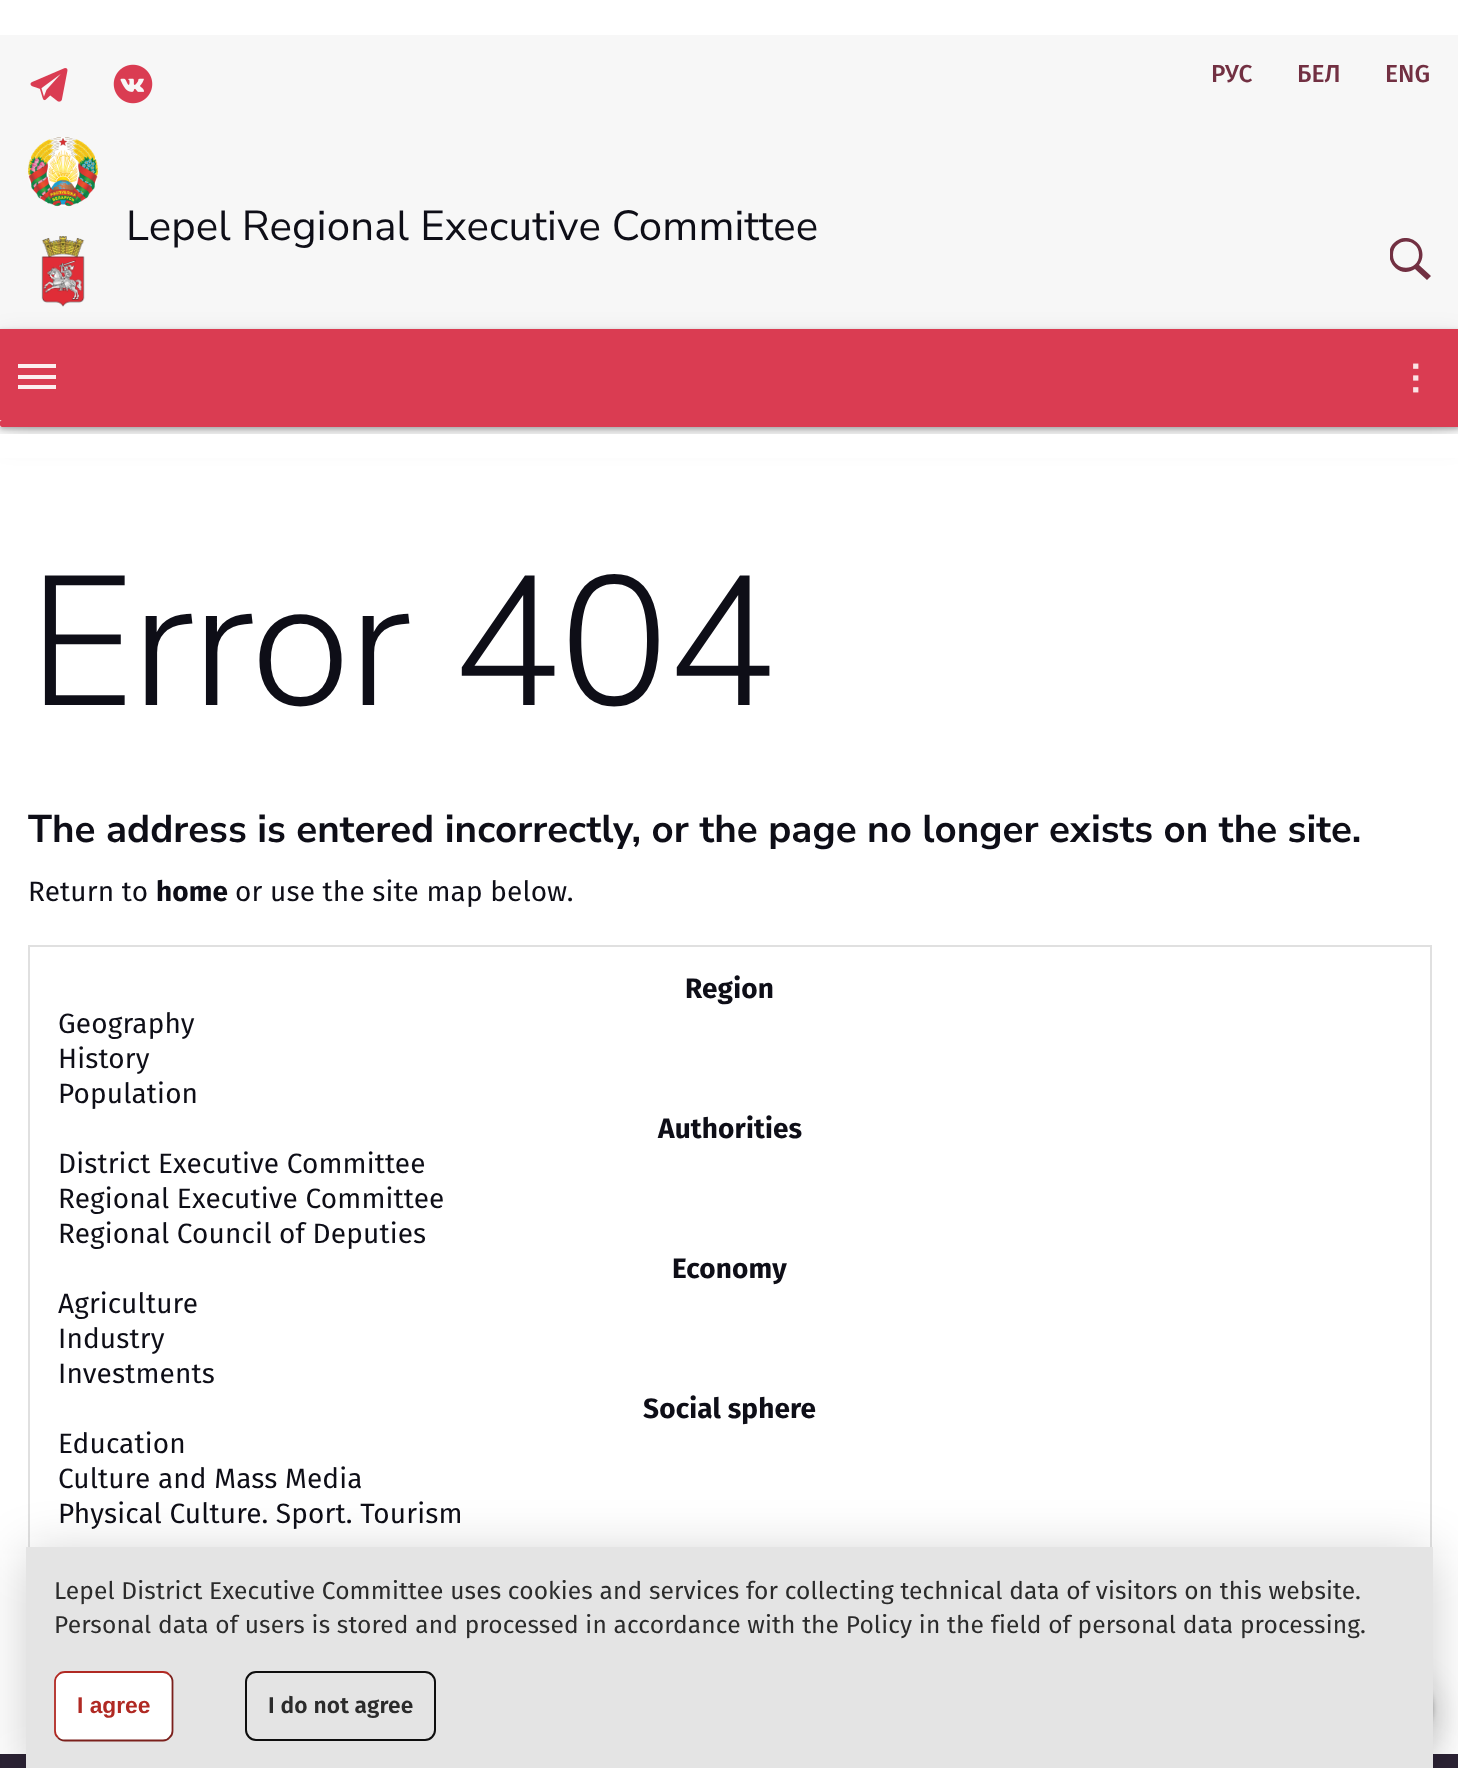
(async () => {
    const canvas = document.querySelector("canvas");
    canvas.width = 1458;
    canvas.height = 1768;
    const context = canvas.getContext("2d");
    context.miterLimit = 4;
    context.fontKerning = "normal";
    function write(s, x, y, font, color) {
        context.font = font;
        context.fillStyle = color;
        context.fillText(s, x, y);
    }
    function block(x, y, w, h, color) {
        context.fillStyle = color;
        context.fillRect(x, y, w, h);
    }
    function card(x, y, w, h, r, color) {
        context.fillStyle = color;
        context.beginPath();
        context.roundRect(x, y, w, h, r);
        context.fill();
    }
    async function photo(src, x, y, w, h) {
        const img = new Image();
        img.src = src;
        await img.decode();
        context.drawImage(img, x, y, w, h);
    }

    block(0, 0, 1458, 1768, "rgb(255, 255, 255)");
    block(0, 35, 1458, 294, "rgb(247, 247, 247)");
    write("РУС", 1211, 82, "500 24.5px Fira Sans", "rgb(114, 48, 66)");
    write("БЕЛ", 1297, 82, "500 24.5px Fira Sans", "rgb(114, 48, 66)");
    write("ENG", 1385, 82, "500 24.5px Fira Sans", "rgb(114, 48, 66)");
    context.save();
    context.beginPath();
    context.rect(1390, 238, 42, 42);
    context.clip();
    context.beginPath();
    context.moveTo(1419, 255);
    context.bezierCurveTo(1419, 272, 1393, 272, 1393, 255);
    context.bezierCurveTo(1393, 237, 1419, 237, 1419, 255);
    context.closePath();
    context.moveTo(1415, 269);
    context.bezierCurveTo(1395, 282, 1377, 249, 1400, 239);
    context.bezierCurveTo(1405, 237, 1411, 238, 1415, 241);
    context.bezierCurveTo(1423, 246, 1425, 257, 1419, 265);
    context.lineTo(1431, 276);
    context.lineTo(1427, 280);
    context.closePath();
    context.fill("evenodd");
    context.restore();
    await photo("media/1.png", 28, 137, 70, 70);
    context.fillStyle = "rgba(14, 14, 14, 0.15)";
    context.filter = "blur(14px)";
    context.beginPath();
    context.rect(0, 340, 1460, 98);
    context.fill();
    context.filter = "none";
    await photo("media/2.png", 41, 236, 44, 71);
    await photo("media/3.png", 30, 68, 38, 34);
    await photo("media/4.png", 113, 64, 40, 40);
    context.letterSpacing = "0.14px";
    write("Lepel Regional Executive Committee", 126, 240, "42px Nunito Sans", "rgb(14, 14, 23)");
    context.fillStyle = "rgba(14, 14, 14, 0.3)";
    context.filter = "blur(2.5px)";
    context.beginPath();
    context.rect(0, 331, 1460, 98);
    context.fill();
    context.filter = "none";
    block(0, 329, 1458, 91, "rgb(218, 60, 82)");
    block(18, 364, 38, 4, "rgb(252, 238, 239)");
    block(18, 375, 38, 4, "rgb(252, 238, 239)");
    block(18, 385, 38, 4, "rgb(252, 238, 239)");
    await photo("media/5.png", 1413, 363, 6, 30);
    block(0, 420, 2, 7, "rgb(255, 255, 255)");
    card(0, 420, 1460, 7, 2, "rgb(218, 60, 82)");
    block(0, 434, 1458, 24, "rgb(255, 255, 255)");
    context.letterSpacing = "-2.75px";
    write("Error 404", 28, 705, "300 183.75px Nunito Sans", "rgb(14, 14, 23)");
    context.letterSpacing = "0.05px";
    write("The address is entered incorrectly, or the page no longer exists on the site.", 28, 842, "bold 38.5px Nunito Sans", "rgb(14, 14, 23)");
    context.letterSpacing = "0.14px";
    write("Return to", 28, 901, "28px Fira Sans", "rgb(14, 14, 23)");
    write("home", 156, 901, "bold 28px Fira Sans", "rgb(14, 14, 23)");
    write("or use the site map below.", 235, 901, "28px Fira Sans", "rgb(14, 14, 23)");
    block(28, 945, 1404, 2, "rgb(224, 224, 224)");
    block(1430, 945, 2, 602, "rgb(224, 224, 224)");
    block(28, 945, 2, 602, "rgb(224, 224, 224)");
    write("Region", 685, 998, "bold 28px Fira Sans", "rgb(14, 14, 23)");
    write("Geography", 58, 1033, "28px Fira Sans", "rgb(14, 14, 23)");
    write("History", 58, 1068, "28px Fira Sans", "rgb(14, 14, 23)");
    write("Population", 58, 1103, "28px Fira Sans", "rgb(14, 14, 23)");
    write("Authorities", 658, 1138, "bold 28px Fira Sans", "rgb(14, 14, 23)");
    write("District Executive Committee", 58, 1173, "28px Fira Sans", "rgb(14, 14, 23)");
    write("Regional Executive Committee", 58, 1208, "28px Fira Sans", "rgb(14, 14, 23)");
    write("Regional Council of Deputies", 58, 1243, "28px Fira Sans", "rgb(14, 14, 23)");
    write("Economy", 672, 1278, "bold 28px Fira Sans", "rgb(14, 14, 23)");
    write("Agriculture", 58, 1313, "28px Fira Sans", "rgb(14, 14, 23)");
    write("Industry", 58, 1348, "28px Fira Sans", "rgb(14, 14, 23)");
    write("Investments", 58, 1383, "28px Fira Sans", "rgb(14, 14, 23)");
    write("Social sphere", 643, 1418, "bold 28px Fira Sans", "rgb(14, 14, 23)");
    write("Education", 58, 1453, "28px Fira Sans", "rgb(14, 14, 23)");
    write("Culture and Mass Media", 58, 1488, "28px Fira Sans", "rgb(14, 14, 23)");
    write("Physical Culture. Sport. Tourism", 58, 1523, "28px Fira Sans", "rgb(14, 14, 23)");
    block(0, 1754, 1458, 14, "rgb(43, 34, 52)");
    context.fillStyle = "rgba(14, 14, 14, 0.2)";
    context.filter = "blur(26px)";
    context.beginPath();
    context.rect(26, 1554, 1407, 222);
    context.fill();
    context.filter = "none";
    context.fillStyle = "rgba(14, 14, 14, 0.3)";
    context.filter = "blur(2px)";
    context.beginPath();
    context.roundRect(1363, 1673, 70, 70, 35);
    context.fill();
    context.filter = "none";
    context.fillStyle = "rgba(14, 14, 14, 0.15)";
    context.filter = "blur(14px)";
    context.beginPath();
    context.roundRect(1369, 1678, 70, 70, 35);
    context.fill();
    context.filter = "none";
    block(26, 1547, 1407, 221, "rgb(228, 228, 228)");
    write("Lepel District Executive Committee uses cookies and services for collecting technical data of visitors on this website.", 54, 1599, "24.5px Fira Sans", "rgb(43, 43, 43)");
    write("Personal data of users is stored and processed in accordance with the Policy in the field of personal data processing.", 54, 1633, "24.5px Fira Sans", "rgb(43, 43, 43)");
    context.beginPath();
    context.roundRect(246, 1672, 189, 68, 10);
    context.strokeStyle = "rgb(14, 14, 14)";
    context.lineWidth = 2;
    context.stroke();
    write("I do not agree", 268, 1713, "600 22.75px Fira Sans", "rgb(43, 43, 43)");
    card(54, 1671, 119, 70, 11, "rgb(255, 255, 255)");
    context.beginPath();
    context.moveTo(169.5, 1675);
    context.bezierCurveTo(171.5, 1676.5, 172.5, 1679, 172.5, 1682);
    context.lineTo(172.5, 1731);
    context.bezierCurveTo(172.5, 1733.5, 171.5, 1736, 169.5, 1737.5);
    context.bezierCurveTo(168, 1739.5, 165.5, 1740.5, 163, 1740.5);
    context.lineTo(65, 1740.5);
    context.bezierCurveTo(62, 1740.5, 59.5, 1739.5, 58, 1737.5);
    context.strokeStyle = "rgb(123, 32, 28)";
    context.lineWidth = 1.8;
    context.stroke();
    context.beginPath();
    context.moveTo(58, 1737.5);
    context.bezierCurveTo(56, 1736, 55, 1733.5, 55, 1731);
    context.lineTo(55, 1682);
    context.bezierCurveTo(55, 1679, 56, 1676.5, 58, 1675);
    context.bezierCurveTo(59.5, 1673, 62, 1672, 65, 1672);
    context.lineTo(163, 1672);
    context.bezierCurveTo(165.5, 1672, 168, 1673, 169.5, 1675);
    context.strokeStyle = "rgb(176, 41, 35)";
    context.stroke();
    context.letterSpacing = "0px";
    write("I agree", 77, 1713, "bold 22.75px Liberation Sans", "rgb(176, 41, 35)");
})();
